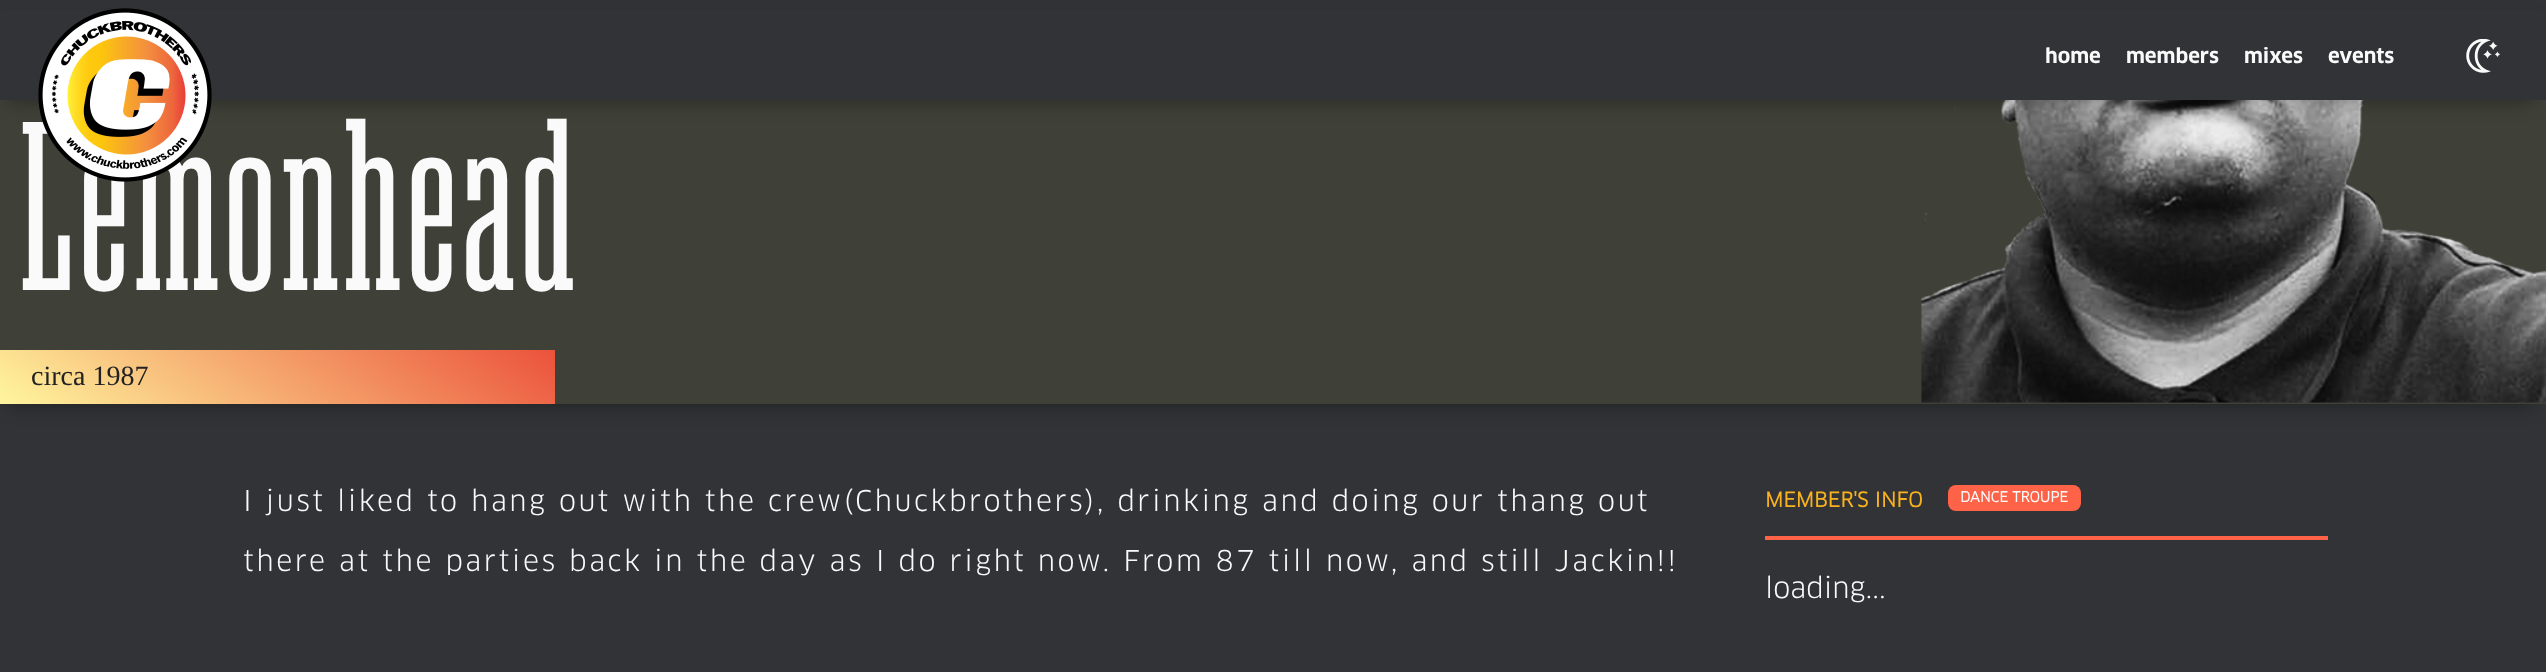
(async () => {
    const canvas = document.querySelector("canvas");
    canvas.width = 2546;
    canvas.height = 672;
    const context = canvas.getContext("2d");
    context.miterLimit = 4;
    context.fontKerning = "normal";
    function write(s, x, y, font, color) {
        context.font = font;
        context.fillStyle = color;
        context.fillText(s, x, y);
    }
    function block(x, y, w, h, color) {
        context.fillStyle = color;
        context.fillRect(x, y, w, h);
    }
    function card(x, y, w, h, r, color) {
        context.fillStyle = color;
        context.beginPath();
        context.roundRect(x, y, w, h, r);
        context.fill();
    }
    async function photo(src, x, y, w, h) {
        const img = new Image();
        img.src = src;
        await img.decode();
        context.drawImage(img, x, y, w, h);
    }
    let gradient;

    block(0, 0, 2546, 672, "rgb(49, 51, 54)");
    context.save();
    context.beginPath();
    context.moveTo(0, 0);
    context.lineTo(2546, 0);
    context.lineTo(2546, 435);
    context.lineTo(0, 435);
    context.closePath();
    context.moveTo(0, 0);
    context.lineTo(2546, 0);
    context.lineTo(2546, 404);
    context.lineTo(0, 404);
    context.closePath();
    context.clip("evenodd");
    context.fillStyle = "rgba(0, 0, 0, 0.36)";
    context.filter = "blur(9.5px)";
    context.beginPath();
    context.rect(8, 21, 2526, 384);
    context.fill();
    context.filter = "none";
    context.restore();
    block(0, 100, 2546, 304, "rgba(255, 255, 84, 0.07)");
    await photo("media/3.png", 1921, 100, 625, 303);
    context.fillStyle = "rgba(0, 0, 0, 0.36)";
    context.filter = "blur(9.5px)";
    context.beginPath();
    context.rect(8, 21, 2526, 80);
    context.fill();
    context.filter = "none";
    block(0, 10, 2545, 90, "rgb(49, 51, 54)");
    context.letterSpacing = "6px";
    write("Lemonhead", 19, 290, "240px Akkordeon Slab", "rgb(250, 250, 250)");
    await photo("media/1.png", 38, 8, 174, 174);
    context.letterSpacing = "0px";
    write("home", 2045, 63, "bold 20px 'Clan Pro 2'", "rgb(250, 250, 250)");
    write("members", 2126, 63, "bold 20px 'Clan Pro 2'", "rgb(250, 250, 250)");
    write("mixes", 2244, 63, "bold 20px 'Clan Pro 2'", "rgb(250, 250, 250)");
    write("events", 2328, 63, "bold 20px 'Clan Pro 2'", "rgb(250, 250, 250)");
    await photo("media/2.png", 2466, 39, 35, 34);
    gradient = context.createLinearGradient(169, 527, 379, 227);
    gradient.addColorStop(0, "rgb(255, 248, 159)");
    gradient.addColorStop(1, "rgb(235, 82, 59)");
    context.fillStyle = gradient;
    context.fillRect(0, 350, 555, 54);
    write("circa 1987", 31, 385, "28px Liberation Serif", "rgb(34, 34, 34)");
    context.letterSpacing = "2.5px";
    write("I just liked to hang out with the crew(Chuckbrothers), drinking and doing our thang out", 243, 511, "28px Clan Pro", "rgb(250, 250, 250)");
    write("there at the parties back in the day as I do right now. From 87 till now, and still Jackin!!", 243, 571, "28px Clan Pro", "rgb(250, 250, 250)");
    block(1765, 536, 563, 4, "rgb(255, 99, 71)");
    context.letterSpacing = "0px";
    write("MEMBER'S INFO", 1765, 507, "bold 20px Clan Pro", "rgb(249, 178, 31)");
    card(1948, 485, 133, 26, 8, "rgb(255, 99, 71)");
    write("DANCE TROUPE", 1960, 502, "bold 14px Clan Pro", "rgb(250, 250, 250)");
    write("loading...", 1765, 598, "28px Clan Pro", "rgb(250, 250, 250)");
})();
